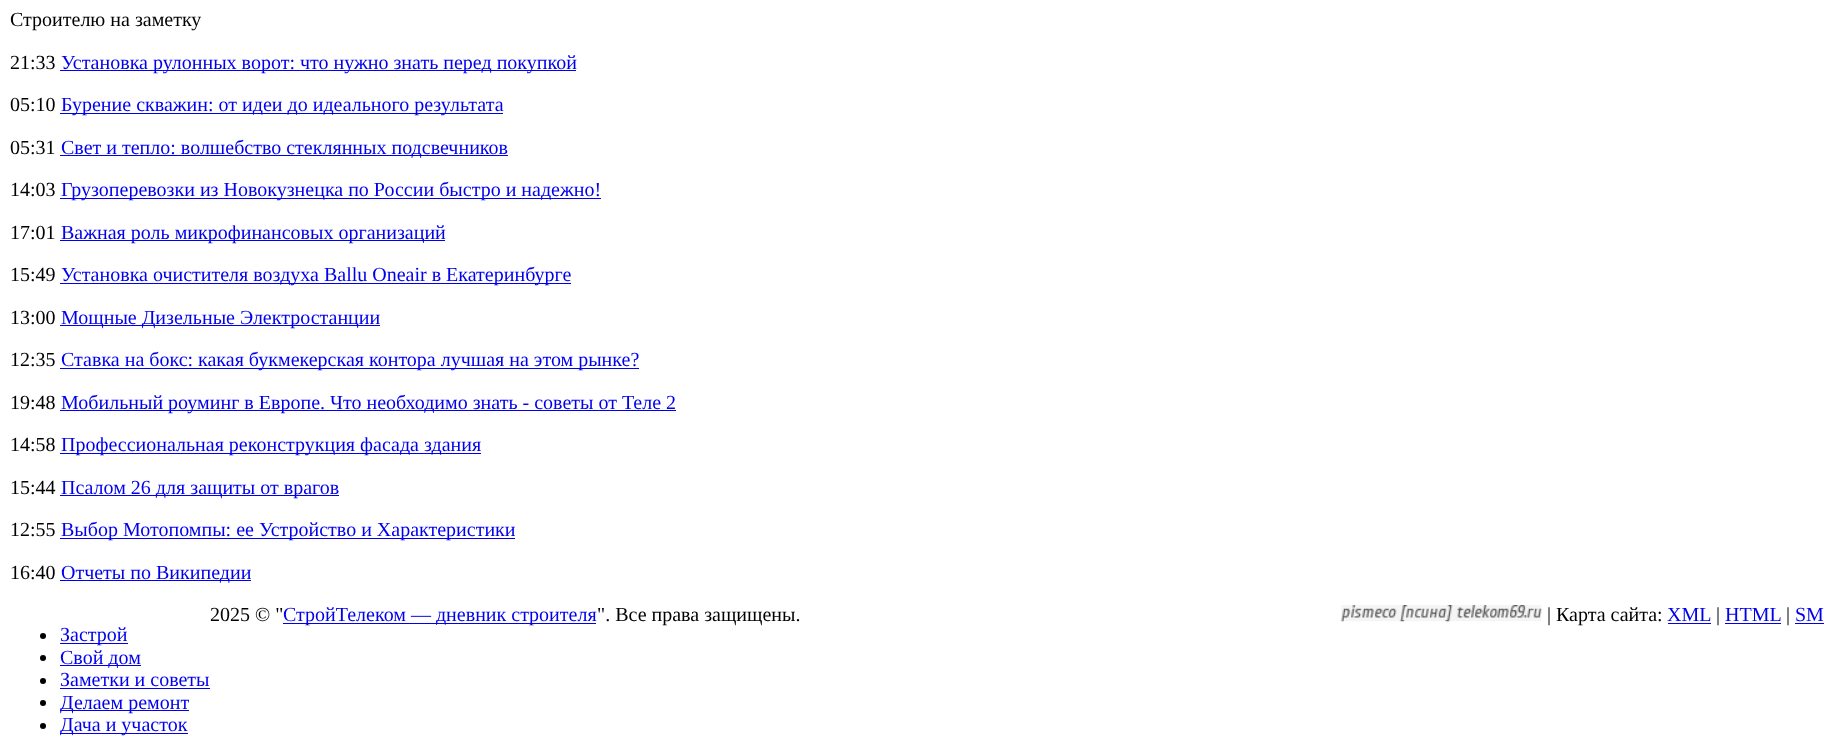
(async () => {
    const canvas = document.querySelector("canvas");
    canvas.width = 1833;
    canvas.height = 751;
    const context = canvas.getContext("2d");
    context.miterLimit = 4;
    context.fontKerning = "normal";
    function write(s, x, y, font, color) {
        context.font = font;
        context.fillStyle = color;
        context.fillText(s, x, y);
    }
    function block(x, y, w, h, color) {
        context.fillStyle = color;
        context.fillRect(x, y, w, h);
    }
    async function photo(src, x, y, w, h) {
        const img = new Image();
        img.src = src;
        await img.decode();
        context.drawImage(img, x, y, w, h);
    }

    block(0, 0, 1833, 751, "rgb(255, 255, 255)");
    write("Строителю на заметку", 10, 26, "20px Liberation Serif", "rgb(0, 0, 0)");
    write("21:33", 10, 69, "20px Liberation Serif", "rgb(0, 0, 0)");
    block(60, 70, 516, 1, "rgb(0, 0, 238)");
    write("Установка рулонных ворот: что нужно знать перед покупкой", 61, 69, "20px Liberation Serif", "rgb(0, 0, 238)");
    write("05:10", 10, 111, "20px Liberation Serif", "rgb(0, 0, 0)");
    block(60, 113, 443, 1, "rgb(0, 0, 238)");
    write("Бурение скважин: от идеи до идеального результата", 61, 111, "20px Liberation Serif", "rgb(0, 0, 238)");
    write("05:31", 10, 154, "20px Liberation Serif", "rgb(0, 0, 0)");
    block(60, 155, 448, 1, "rgb(0, 0, 238)");
    write("Свет и тепло: волшебство стеклянных подсвечников", 61, 154, "20px Liberation Serif", "rgb(0, 0, 238)");
    write("14:03", 10, 196, "20px Liberation Serif", "rgb(0, 0, 0)");
    block(60, 198, 541, 1, "rgb(0, 0, 238)");
    write("Грузоперевозки из Новокузнецка по России быстро и надежно!", 61, 196, "20px Liberation Serif", "rgb(0, 0, 238)");
    write("17:01", 10, 239, "20px Liberation Serif", "rgb(0, 0, 0)");
    block(60, 240, 385, 1, "rgb(0, 0, 238)");
    write("Важная роль микрофинансовых организаций", 61, 239, "20px Liberation Serif", "rgb(0, 0, 238)");
    write("15:49", 10, 281, "20px Liberation Serif", "rgb(0, 0, 0)");
    block(60, 283, 511, 1, "rgb(0, 0, 238)");
    write("Установка очистителя воздуха Ballu Oneair в Екатеринбурге", 61, 281, "20px Liberation Serif", "rgb(0, 0, 238)");
    write("13:00", 10, 324, "20px Liberation Serif", "rgb(0, 0, 0)");
    block(60, 325, 320, 1, "rgb(0, 0, 238)");
    write("Мощные Дизельные Электростанции", 61, 324, "20px Liberation Serif", "rgb(0, 0, 238)");
    write("12:35", 10, 366, "20px Liberation Serif", "rgb(0, 0, 0)");
    block(60, 368, 579, 1, "rgb(0, 0, 238)");
    write("Ставка на бокс: какая букмекерская контора лучшая на этом рынке?", 61, 366, "20px Liberation Serif", "rgb(0, 0, 238)");
    write("19:48", 10, 409, "20px Liberation Serif", "rgb(0, 0, 0)");
    block(60, 410, 616, 1, "rgb(0, 0, 238)");
    write("Мобильный роуминг в Европе. Что необходимо знать - советы от Теле 2", 61, 409, "20px Liberation Serif", "rgb(0, 0, 238)");
    write("14:58", 10, 451, "20px Liberation Serif", "rgb(0, 0, 0)");
    block(60, 453, 421, 1, "rgb(0, 0, 238)");
    write("Профессиональная реконструкция фасада здания", 61, 451, "20px Liberation Serif", "rgb(0, 0, 238)");
    write("15:44", 10, 494, "20px Liberation Serif", "rgb(0, 0, 0)");
    block(60, 495, 279, 1, "rgb(0, 0, 238)");
    write("Псалом 26 для защиты от врагов", 61, 494, "20px Liberation Serif", "rgb(0, 0, 238)");
    write("12:55", 10, 536, "20px Liberation Serif", "rgb(0, 0, 0)");
    block(60, 538, 455, 1, "rgb(0, 0, 238)");
    write("Выбор Мотопомпы: ее Устройство и Характеристики", 61, 536, "20px Liberation Serif", "rgb(0, 0, 238)");
    write("16:40", 10, 579, "20px Liberation Serif", "rgb(0, 0, 0)");
    block(60, 580, 191, 1, "rgb(0, 0, 238)");
    write("Отчеты по Википедии", 61, 579, "20px Liberation Serif", "rgb(0, 0, 238)");
    await photo("media/1.png", 1341, 605, 201, 17);
    write("| Карта сайта:", 1547, 621, "20px Liberation Serif", "rgb(0, 0, 0)");
    write("XML", 1667, 621, "20px Liberation Serif", "rgb(0, 0, 238)");
    block(1668, 623, 43, 1, "rgb(0, 0, 238)");
    write("|", 1716, 621, "20px Liberation Serif", "rgb(0, 0, 0)");
    write("HTML", 1725, 621, "20px Liberation Serif", "rgb(0, 0, 238)");
    block(1725, 623, 56, 1, "rgb(0, 0, 238)");
    write("|", 1786, 621, "20px Liberation Serif", "rgb(0, 0, 0)");
    write("SM", 1795, 621, "20px Liberation Serif", "rgb(0, 0, 238)");
    block(1795, 623, 29, 1, "rgb(0, 0, 238)");
    context.fillStyle = "rgb(0, 0, 0)";
    context.beginPath();
    context.arc(43, 636, 3, 0, Math.PI * 2);
    context.fill();
    block(60, 643, 68, 1, "rgb(0, 0, 238)");
    write("Застрой", 60, 641, "20px Liberation Serif", "rgb(0, 0, 238)");
    context.fillStyle = "rgb(0, 0, 0)";
    context.beginPath();
    context.arc(43, 658, 3, 0, Math.PI * 2);
    context.fill();
    block(60, 665, 81, 1, "rgb(0, 0, 238)");
    write("Свой дом", 60, 664, "20px Liberation Serif", "rgb(0, 0, 238)");
    context.fillStyle = "rgb(0, 0, 0)";
    context.beginPath();
    context.arc(43, 681, 3, 0, Math.PI * 2);
    context.fill();
    write("Заметки и советы", 60, 686, "20px Liberation Serif", "rgb(0, 0, 238)");
    block(60, 688, 150, 1, "rgb(0, 0, 238)");
    context.fillStyle = "rgb(0, 0, 0)";
    context.beginPath();
    context.arc(43, 703, 3, 0, Math.PI * 2);
    context.fill();
    block(60, 710, 129, 1, "rgb(0, 0, 238)");
    write("Делаем ремонт", 60, 709, "20px Liberation Serif", "rgb(0, 0, 238)");
    context.fillStyle = "rgb(0, 0, 0)";
    context.beginPath();
    context.arc(43, 726, 3, 0, Math.PI * 2);
    context.fill();
    block(60, 733, 128, 1, "rgb(0, 0, 238)");
    write("Дача и участок", 60, 731, "20px Liberation Serif", "rgb(0, 0, 238)");
    write("2025 © \"", 210, 621, "20px Liberation Serif", "rgb(0, 0, 0)");
    block(283, 623, 313, 1, "rgb(0, 0, 238)");
    write("СтройТелеком — дневник строителя", 283, 621, "20px Liberation Serif", "rgb(0, 0, 238)");
    write("\". Все права защищены.", 597, 621, "20px Liberation Serif", "rgb(0, 0, 0)");
})();
